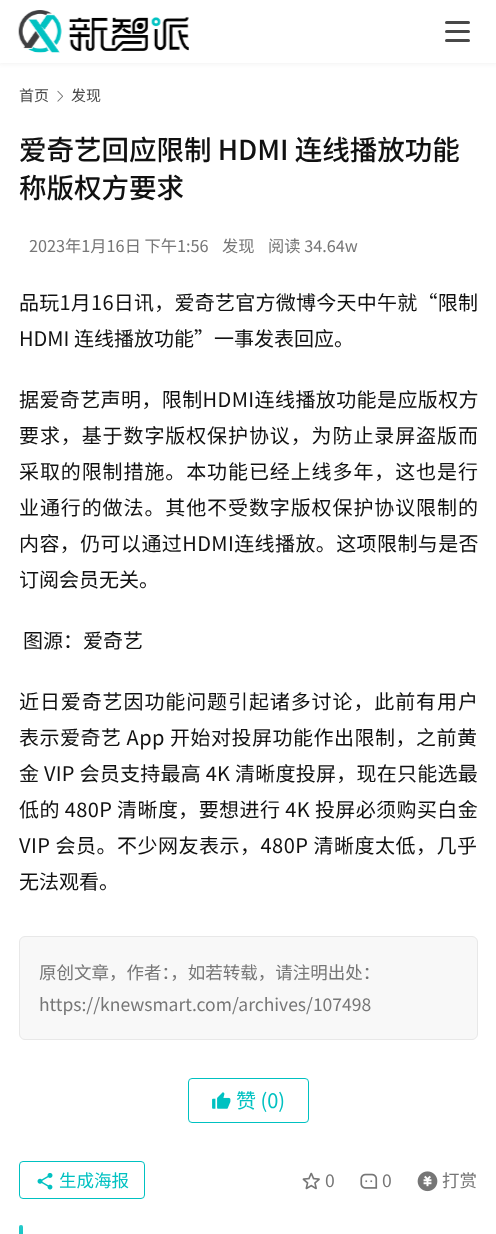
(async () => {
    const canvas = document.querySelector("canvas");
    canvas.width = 496;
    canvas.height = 1234;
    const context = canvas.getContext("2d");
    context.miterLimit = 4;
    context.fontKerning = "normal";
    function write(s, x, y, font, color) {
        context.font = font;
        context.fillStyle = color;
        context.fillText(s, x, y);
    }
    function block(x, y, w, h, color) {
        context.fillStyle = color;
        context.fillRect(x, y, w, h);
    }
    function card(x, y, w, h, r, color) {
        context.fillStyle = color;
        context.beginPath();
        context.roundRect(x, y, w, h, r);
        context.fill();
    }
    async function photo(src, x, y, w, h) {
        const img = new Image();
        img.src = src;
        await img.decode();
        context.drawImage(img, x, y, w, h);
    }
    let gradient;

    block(0, 0, 496, 1234, "rgb(255, 255, 255)");
    context.fillStyle = "rgba(26, 26, 26, 0.06)";
    context.filter = "blur(2px)";
    context.beginPath();
    context.rect(-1, -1, 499, 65);
    context.fill();
    context.filter = "none";
    block(0, 0, 496, 63, "rgb(255, 255, 255)");
    await photo("media/1.png", 18, 10, 171, 43);
    card(445, 21, 25, 3, 1.5, "rgb(72, 72, 72)");
    card(445, 30, 25, 3, 1.5, "rgb(72, 72, 72)");
    card(445, 39, 25, 3, 1.5, "rgb(72, 72, 72)");
    write("首页", 19, 101, "15px Noto Sans CJK SC", "rgb(72, 72, 72)");
    await photo("media/2.png", 57, 90, 6, 12);
    write("发现", 71, 101, "15px Noto Sans CJK SC", "rgb(72, 72, 72)");
    write("爱奇艺回应限制 HDMI 连线播放功能", 19, 160, "500 27.5px Noto Sans CJK SC", "rgb(17, 17, 17)");
    write("称版权方要求", 19, 198, "500 27.5px Noto Sans CJK SC", "rgb(17, 17, 17)");
    write("2023年1月16日 下午1:56", 29, 252, "16.25px Noto Sans CJK SC", "rgb(118, 118, 118)");
    write("发现", 222, 252, "16.25px Noto Sans CJK SC", "rgb(118, 118, 118)");
    write("阅读 34.64w", 268, 252, "16.25px Noto Sans CJK SC", "rgb(118, 118, 118)");
    context.letterSpacing = "0.25px";
    write("品玩1月16日讯，爱奇艺官方微博今天中午就“限制", 19, 310, "20px Noto Sans CJK SC", "rgb(17, 17, 17)");
    context.letterSpacing = "0px";
    write("HDMI 连线播放功能”一事发表回应。", 19, 346, "20px Noto Sans CJK SC", "rgb(17, 17, 17)");
    context.letterSpacing = "0.4px";
    write("据爱奇艺声明，限制HDMI连线播放功能是应版权方", 19, 407, "20px Noto Sans CJK SC", "rgb(17, 17, 17)");
    context.letterSpacing = "0.9px";
    write("要求，基于数字版权保护协议，为防止录屏盗版而", 19, 443, "20px Noto Sans CJK SC", "rgb(17, 17, 17)");
    write("采取的限制措施。本功能已经上线多年，这也是行", 19, 479, "20px Noto Sans CJK SC", "rgb(17, 17, 17)");
    write("业通行的做法。其他不受数字版权保护协议限制的", 19, 515, "20px Noto Sans CJK SC", "rgb(17, 17, 17)");
    context.letterSpacing = "0.4px";
    write("内容，仍可以通过HDMI连线播放。这项限制与是否", 19, 551, "20px Noto Sans CJK SC", "rgb(17, 17, 17)");
    context.letterSpacing = "0px";
    write("订阅会员无关。", 19, 587, "20px Noto Sans CJK SC", "rgb(17, 17, 17)");
    write("图源：爱奇艺", 23, 648, "20px Noto Sans CJK SC", "rgb(17, 17, 17)");
    context.letterSpacing = "0.9px";
    write("近日爱奇艺因功能问题引起诸多讨论，此前有用户", 19, 709, "20px Noto Sans CJK SC", "rgb(17, 17, 17)");
    context.letterSpacing = "0.5px";
    write("表示爱奇艺 App 开始对投屏功能作出限制，之前黄", 19, 745, "20px Noto Sans CJK SC", "rgb(17, 17, 17)");
    context.letterSpacing = "0.25px";
    write("金 VIP 会员支持最高 4K 清晰度投屏，现在只能选最", 19, 781, "20px Noto Sans CJK SC", "rgb(17, 17, 17)");
    context.letterSpacing = "0.4px";
    write("低的 480P 清晰度，要想进行 4K 投屏必须购买白金", 19, 817, "20px Noto Sans CJK SC", "rgb(17, 17, 17)");
    context.letterSpacing = "0.5px";
    write("VIP 会员。不少网友表示，480P 清晰度太低，几乎", 19, 853, "20px Noto Sans CJK SC", "rgb(17, 17, 17)");
    context.letterSpacing = "0px";
    write("无法观看。", 19, 889, "20px Noto Sans CJK SC", "rgb(17, 17, 17)");
    context.fillStyle = "rgb(248, 248, 248)";
    context.beginPath();
    context.roundRect(19.5, 936.5, 458, 103, 5.5);
    context.fill();
    context.strokeStyle = "rgb(232, 232, 232)";
    context.stroke();
    write("原创文章，作者：，如若转载，请注明出处：", 39, 979, "17.5px Noto Sans CJK SC", "rgb(118, 118, 118)");
    write("https://knewsmart.com/archives/107498", 39, 1011, "17.5px Noto Sans CJK SC", "rgb(118, 118, 118)");
    context.beginPath();
    context.roundRect(188.5, 1078.5, 120, 44, 3.5);
    context.strokeStyle = "rgb(0, 193, 193)";
    context.stroke();
    await photo("media/3.png", 212, 1092, 19, 17);
    write("赞 (0)", 236, 1108, "20px Noto Sans CJK SC", "rgb(0, 193, 193)");
    context.beginPath();
    context.roundRect(19.5, 1161.5, 125, 37, 3.5);
    context.stroke();
    await photo("media/4.png", 37, 1173, 16, 17);
    write("生成海报", 59, 1187, "17.5px Noto Sans CJK SC", "rgb(0, 193, 193)");
    await photo("media/5.png", 302, 1172, 18, 18);
    write("0", 325, 1187, "17.5px Noto Sans CJK SC", "rgb(118, 118, 118)");
    await photo("media/6.png", 360, 1173, 18, 16);
    write("0", 382, 1187, "17.5px Noto Sans CJK SC", "rgb(118, 118, 118)");
    await photo("media/7.png", 417, 1171, 21, 21);
    write("打赏", 442, 1187, "17.5px Noto Sans CJK SC", "rgb(118, 118, 118)");
    card(19, 1225, 4, 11, 2, "rgb(0, 193, 193)");
    gradient = context.createLinearGradient(21, 1225, 21, 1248);
    gradient.addColorStop(0, "rgba(255, 255, 255, 0.15)");
    gradient.addColorStop(1, "rgba(255, 255, 255, 0)");
    context.fillStyle = gradient;
    context.beginPath();
    context.roundRect(19, 1225, 4, 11, 2);
    context.fill();
})();
